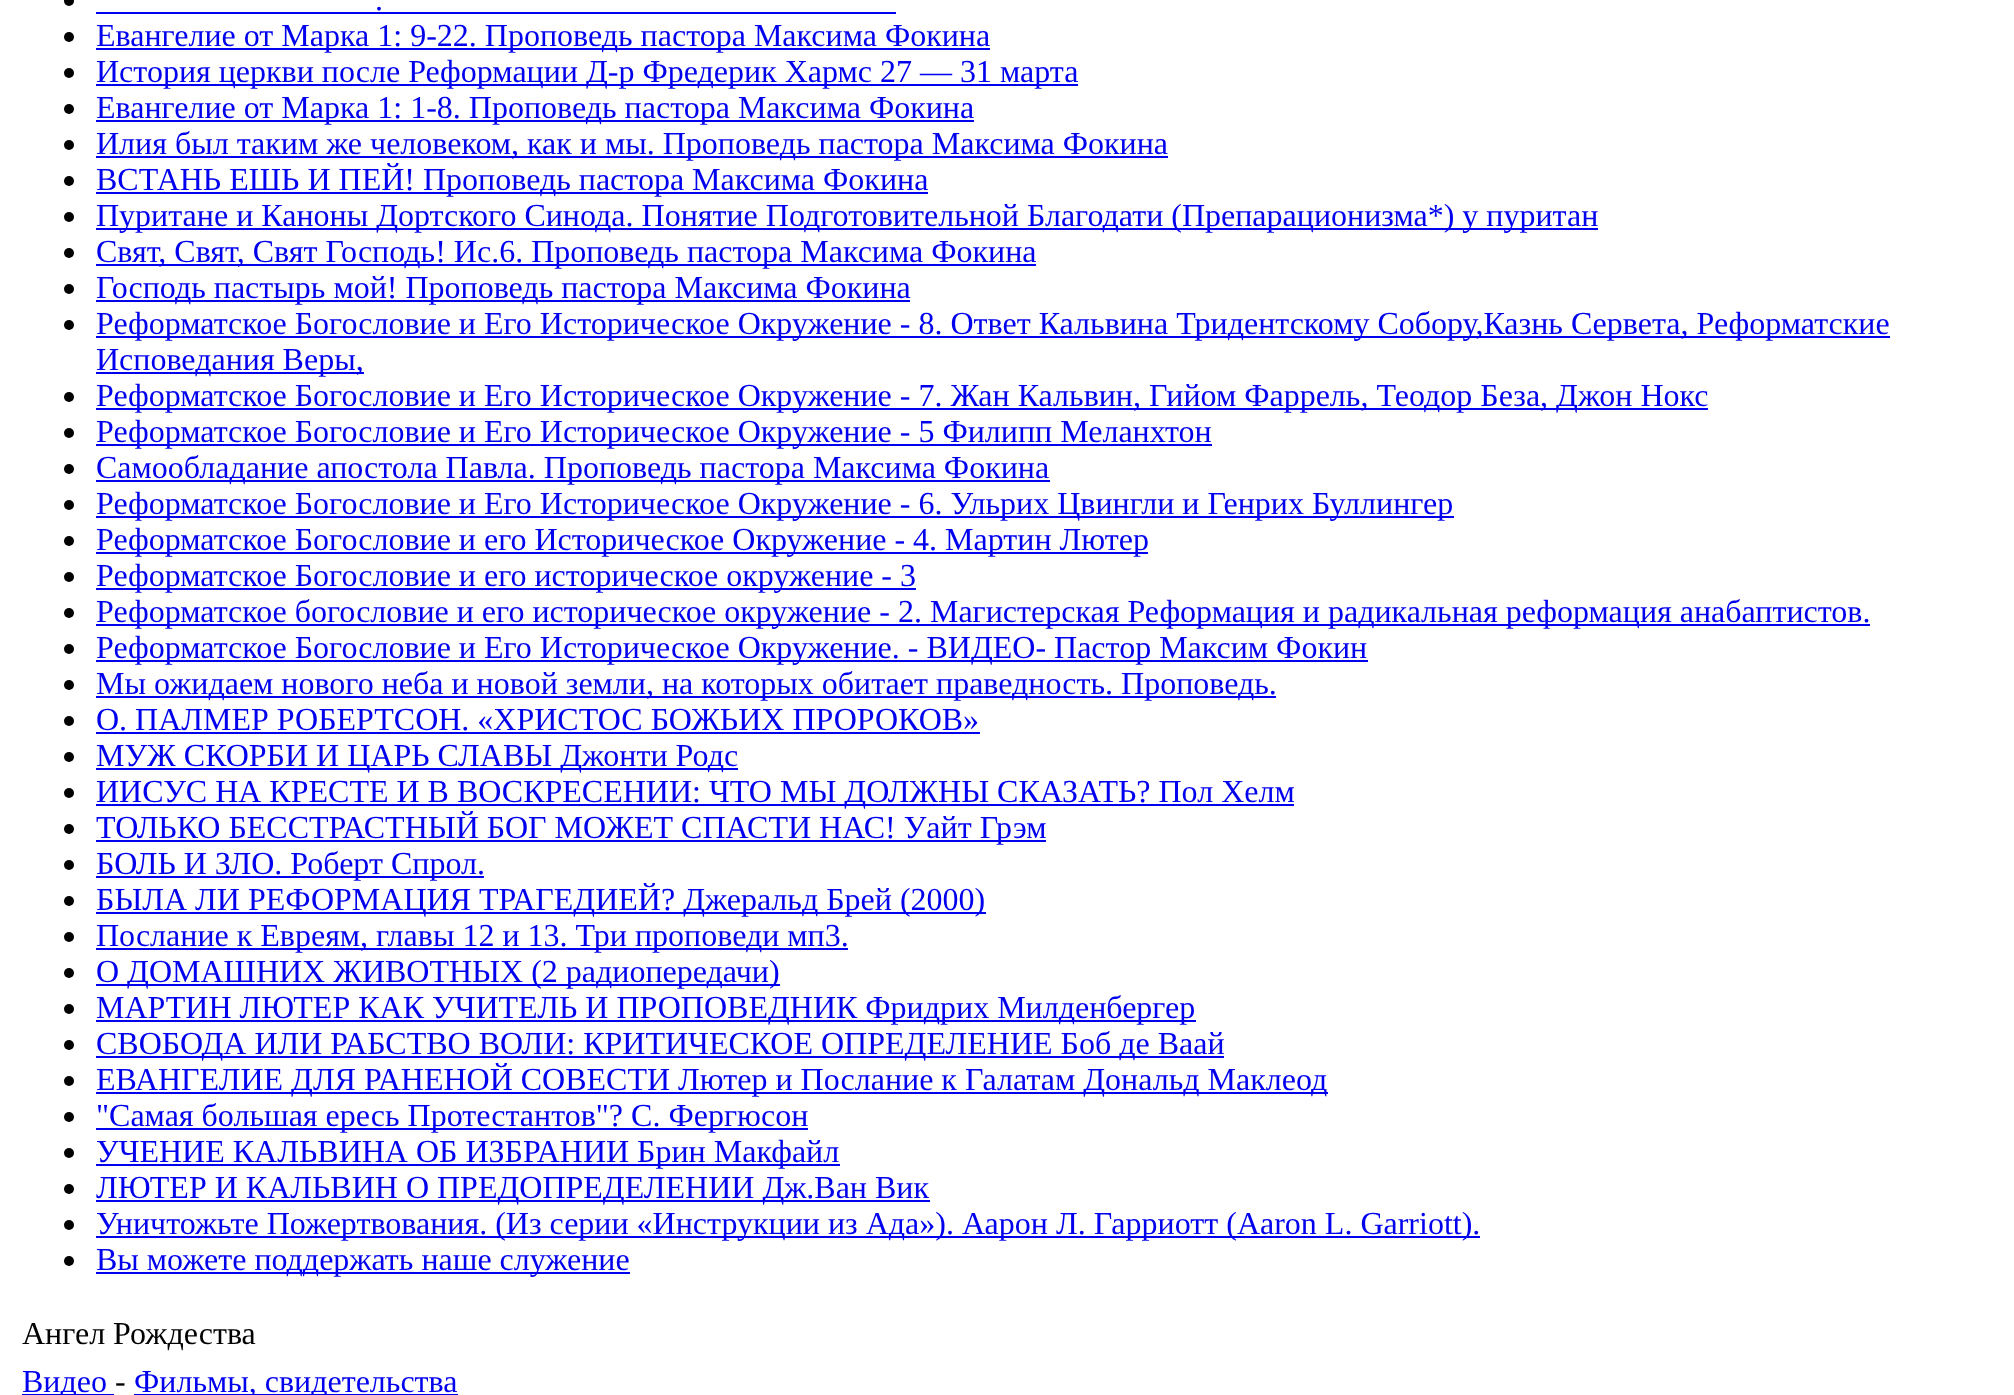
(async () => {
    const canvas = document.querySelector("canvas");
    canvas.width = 2014;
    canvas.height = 1395;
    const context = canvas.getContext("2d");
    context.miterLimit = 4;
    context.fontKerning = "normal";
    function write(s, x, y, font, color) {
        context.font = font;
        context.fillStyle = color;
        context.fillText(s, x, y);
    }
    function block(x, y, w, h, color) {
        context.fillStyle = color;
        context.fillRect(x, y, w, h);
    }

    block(0, 0, 2014, 1395, "rgb(255, 255, 255)");
    context.fillStyle = "rgb(0, 0, 0)";
    context.beginPath();
    context.arc(69, 1, 5, 0, Math.PI * 2);
    context.fill();
    write(".", 375, 10, "32px Liberation Serif", "rgb(0, 0, 238)");
    block(96, 12, 800, 2, "rgb(0, 0, 238)");
    context.fillStyle = "rgb(0, 0, 0)";
    context.beginPath();
    context.arc(69, 37, 5, 0, Math.PI * 2);
    context.fill();
    block(96, 48, 894, 2, "rgb(0, 0, 238)");
    write("Евангелие от Марка 1: 9-22. Проповедь пастора Максима Фокина", 96, 46, "32px Liberation Serif", "rgb(0, 0, 238)");
    context.fillStyle = "rgb(0, 0, 0)";
    context.beginPath();
    context.arc(69, 73, 5, 0, Math.PI * 2);
    context.fill();
    block(96, 84, 982, 2, "rgb(0, 0, 238)");
    write("История церкви после Реформации Д-р Фредерик Хармс 27 — 31 марта", 96, 82, "32px Liberation Serif", "rgb(0, 0, 238)");
    context.fillStyle = "rgb(0, 0, 0)";
    context.beginPath();
    context.arc(69, 109, 5, 0, Math.PI * 2);
    context.fill();
    block(96, 120, 878, 2, "rgb(0, 0, 238)");
    write("Евангелие от Марка 1: 1-8. Проповедь пастора Максима Фокина", 96, 118, "32px Liberation Serif", "rgb(0, 0, 238)");
    context.fillStyle = "rgb(0, 0, 0)";
    context.beginPath();
    context.arc(69, 145, 5, 0, Math.PI * 2);
    context.fill();
    block(96, 156, 1072, 2, "rgb(0, 0, 238)");
    write("Илия был таким же человеком, как и мы. Проповедь пастора Максима Фокина", 96, 154, "32px Liberation Serif", "rgb(0, 0, 238)");
    context.fillStyle = "rgb(0, 0, 0)";
    context.beginPath();
    context.arc(69, 181, 5, 0, Math.PI * 2);
    context.fill();
    block(96, 192, 832, 2, "rgb(0, 0, 238)");
    write("ВСТАНЬ ЕШЬ И ПЕЙ! Проповедь пастора Максима Фокина", 96, 190, "32px Liberation Serif", "rgb(0, 0, 238)");
    context.fillStyle = "rgb(0, 0, 0)";
    context.beginPath();
    context.arc(69, 217, 5, 0, Math.PI * 2);
    context.fill();
    block(96, 228, 1502, 2, "rgb(0, 0, 238)");
    write("Пуритане и Каноны Дортского Синода. Понятие Подготовительной Благодати (Препарационизма*) у пуритан", 96, 226, "32px Liberation Serif", "rgb(0, 0, 238)");
    context.fillStyle = "rgb(0, 0, 0)";
    context.beginPath();
    context.arc(69, 253, 5, 0, Math.PI * 2);
    context.fill();
    block(96, 264, 940, 2, "rgb(0, 0, 238)");
    write("Свят, Свят, Свят Господь! Ис.6. Проповедь пастора Максима Фокина", 96, 262, "32px Liberation Serif", "rgb(0, 0, 238)");
    context.fillStyle = "rgb(0, 0, 0)";
    context.beginPath();
    context.arc(69, 289, 5, 0, Math.PI * 2);
    context.fill();
    block(96, 300, 814, 2, "rgb(0, 0, 238)");
    write("Господь пастырь мой! Проповедь пастора Максима Фокина", 96, 298, "32px Liberation Serif", "rgb(0, 0, 238)");
    context.fillStyle = "rgb(0, 0, 0)";
    context.beginPath();
    context.arc(69, 325, 5, 0, Math.PI * 2);
    context.fill();
    block(96, 336, 1794, 2, "rgb(0, 0, 238)");
    write("Реформатское Богословие и Его Историческое Окружение - 8. Ответ Кальвина Тридентскому Собору,Казнь Сервета, Реформатские", 96, 334, "32px Liberation Serif", "rgb(0, 0, 238)");
    block(96, 372, 268, 2, "rgb(0, 0, 238)");
    write("Исповедания Веры,", 96, 370, "32px Liberation Serif", "rgb(0, 0, 238)");
    context.fillStyle = "rgb(0, 0, 0)";
    context.beginPath();
    context.arc(69, 397, 5, 0, Math.PI * 2);
    context.fill();
    block(96, 408, 1612, 2, "rgb(0, 0, 238)");
    write("Реформатское Богословие и Его Историческое Окружение - 7. Жан Кальвин, Гийом Фаррель, Теодор Беза, Джон Нокс", 96, 406, "32px Liberation Serif", "rgb(0, 0, 238)");
    context.fillStyle = "rgb(0, 0, 0)";
    context.beginPath();
    context.arc(69, 433, 5, 0, Math.PI * 2);
    context.fill();
    block(96, 444, 1116, 2, "rgb(0, 0, 238)");
    write("Реформатское Богословие и Его Историческое Окружение - 5 Филипп Меланхтон", 96, 442, "32px Liberation Serif", "rgb(0, 0, 238)");
    context.fillStyle = "rgb(0, 0, 0)";
    context.beginPath();
    context.arc(69, 469, 5, 0, Math.PI * 2);
    context.fill();
    block(96, 480, 954, 2, "rgb(0, 0, 238)");
    write("Самообладание апостола Павла. Проповедь пастора Максима Фокина", 96, 478, "32px Liberation Serif", "rgb(0, 0, 238)");
    context.fillStyle = "rgb(0, 0, 0)";
    context.beginPath();
    context.arc(69, 505, 5, 0, Math.PI * 2);
    context.fill();
    block(96, 516, 1358, 2, "rgb(0, 0, 238)");
    write("Реформатское Богословие и Его Историческое Окружение - 6. Ульрих Цвингли и Генрих Буллингер", 96, 514, "32px Liberation Serif", "rgb(0, 0, 238)");
    context.fillStyle = "rgb(0, 0, 0)";
    context.beginPath();
    context.arc(69, 541, 5, 0, Math.PI * 2);
    context.fill();
    block(96, 552, 1052, 2, "rgb(0, 0, 238)");
    write("Реформатское Богословие и его Историческое Окружение - 4. Мартин Лютер", 96, 550, "32px Liberation Serif", "rgb(0, 0, 238)");
    context.fillStyle = "rgb(0, 0, 0)";
    context.beginPath();
    context.arc(69, 577, 5, 0, Math.PI * 2);
    context.fill();
    block(96, 588, 820, 2, "rgb(0, 0, 238)");
    write("Реформатское Богословие и его историческое окружение - 3", 96, 586, "32px Liberation Serif", "rgb(0, 0, 238)");
    context.fillStyle = "rgb(0, 0, 0)";
    context.beginPath();
    context.arc(69, 613, 5, 0, Math.PI * 2);
    context.fill();
    block(96, 624, 1774, 2, "rgb(0, 0, 238)");
    write("Реформатское богословие и его историческое окружение - 2. Магистерская Реформация и радикальная реформация анабаптистов.", 96, 622, "32px Liberation Serif", "rgb(0, 0, 238)");
    context.fillStyle = "rgb(0, 0, 0)";
    context.beginPath();
    context.arc(69, 649, 5, 0, Math.PI * 2);
    context.fill();
    block(96, 660, 1272, 2, "rgb(0, 0, 238)");
    write("Реформатское Богословие и Его Историческое Окружение. - ВИДЕО- Пастор Максим Фокин", 96, 658, "32px Liberation Serif", "rgb(0, 0, 238)");
    context.fillStyle = "rgb(0, 0, 0)";
    context.beginPath();
    context.arc(69, 685, 5, 0, Math.PI * 2);
    context.fill();
    block(96, 696, 1180, 2, "rgb(0, 0, 238)");
    write("Мы ожидаем нового неба и новой земли, на которых обитает праведность. Проповедь.", 96, 694, "32px Liberation Serif", "rgb(0, 0, 238)");
    context.fillStyle = "rgb(0, 0, 0)";
    context.beginPath();
    context.arc(69, 721, 5, 0, Math.PI * 2);
    context.fill();
    write("О. ПАЛМЕР РОБЕРТСОН. «ХРИСТОС БОЖЬИХ ПРОРОКОВ»", 96, 730, "32px Liberation Serif", "rgb(0, 0, 238)");
    block(96, 732, 884, 2, "rgb(0, 0, 238)");
    context.fillStyle = "rgb(0, 0, 0)";
    context.beginPath();
    context.arc(69, 757, 5, 0, Math.PI * 2);
    context.fill();
    block(96, 768, 642, 2, "rgb(0, 0, 238)");
    write("МУЖ СКОРБИ И ЦАРЬ СЛАВЫ Джонти Родс", 96, 766, "32px Liberation Serif", "rgb(0, 0, 238)");
    context.fillStyle = "rgb(0, 0, 0)";
    context.beginPath();
    context.arc(69, 793, 5, 0, Math.PI * 2);
    context.fill();
    block(96, 804, 1198, 2, "rgb(0, 0, 238)");
    write("ИИСУС НА КРЕСТЕ И В ВОСКРЕСЕНИИ: ЧТО МЫ ДОЛЖНЫ СКАЗАТЬ? Пол Хелм", 96, 802, "32px Liberation Serif", "rgb(0, 0, 238)");
    context.fillStyle = "rgb(0, 0, 0)";
    context.beginPath();
    context.arc(69, 829, 5, 0, Math.PI * 2);
    context.fill();
    block(96, 840, 950, 2, "rgb(0, 0, 238)");
    write("ТОЛЬКО БЕССТРАСТНЫЙ БОГ МОЖЕТ СПАСТИ НАС! Уайт Грэм", 96, 838, "32px Liberation Serif", "rgb(0, 0, 238)");
    context.fillStyle = "rgb(0, 0, 0)";
    context.beginPath();
    context.arc(69, 865, 5, 0, Math.PI * 2);
    context.fill();
    block(96, 876, 388, 2, "rgb(0, 0, 238)");
    write("БОЛЬ И ЗЛО. Роберт Спрол.", 96, 874, "32px Liberation Serif", "rgb(0, 0, 238)");
    context.fillStyle = "rgb(0, 0, 0)";
    context.beginPath();
    context.arc(69, 901, 5, 0, Math.PI * 2);
    context.fill();
    block(96, 912, 890, 2, "rgb(0, 0, 238)");
    write("БЫЛА ЛИ РЕФОРМАЦИЯ ТРАГЕДИЕЙ? Джеральд Брей (2000)", 96, 910, "32px Liberation Serif", "rgb(0, 0, 238)");
    context.fillStyle = "rgb(0, 0, 0)";
    context.beginPath();
    context.arc(69, 937, 5, 0, Math.PI * 2);
    context.fill();
    block(96, 948, 752, 2, "rgb(0, 0, 238)");
    write("Послание к Евреям, главы 12 и 13. Три проповеди мп3.", 96, 946, "32px Liberation Serif", "rgb(0, 0, 238)");
    context.fillStyle = "rgb(0, 0, 0)";
    context.beginPath();
    context.arc(69, 973, 5, 0, Math.PI * 2);
    context.fill();
    block(96, 984, 684, 2, "rgb(0, 0, 238)");
    write("О ДОМАШНИХ ЖИВОТНЫХ (2 радиопередачи)", 96, 982, "32px Liberation Serif", "rgb(0, 0, 238)");
    context.fillStyle = "rgb(0, 0, 0)";
    context.beginPath();
    context.arc(69, 1009, 5, 0, Math.PI * 2);
    context.fill();
    block(96, 1020, 1100, 2, "rgb(0, 0, 238)");
    write("МАРТИН ЛЮТЕР КАК УЧИТЕЛЬ И ПРОПОВЕДНИК Фридрих Милденбергер", 96, 1018, "32px Liberation Serif", "rgb(0, 0, 238)");
    context.fillStyle = "rgb(0, 0, 0)";
    context.beginPath();
    context.arc(69, 1045, 5, 0, Math.PI * 2);
    context.fill();
    block(96, 1056, 1128, 2, "rgb(0, 0, 238)");
    write("СВОБОДА ИЛИ РАБСТВО ВОЛИ: КРИТИЧЕСКОЕ ОПРЕДЕЛЕНИЕ Боб де Ваай", 96, 1054, "32px Liberation Serif", "rgb(0, 0, 238)");
    context.fillStyle = "rgb(0, 0, 0)";
    context.beginPath();
    context.arc(69, 1081, 5, 0, Math.PI * 2);
    context.fill();
    block(96, 1092, 1232, 2, "rgb(0, 0, 238)");
    write("ЕВАНГЕЛИЕ ДЛЯ РАНЕНОЙ СОВЕСТИ Лютер и Послание к Галатам Дональд Маклеод", 96, 1090, "32px Liberation Serif", "rgb(0, 0, 238)");
    context.fillStyle = "rgb(0, 0, 0)";
    context.beginPath();
    context.arc(69, 1117, 5, 0, Math.PI * 2);
    context.fill();
    block(96, 1128, 712, 2, "rgb(0, 0, 238)");
    write("\"Самая большая ересь Протестантов\"? С. Фергюсон", 96, 1126, "32px Liberation Serif", "rgb(0, 0, 238)");
    context.fillStyle = "rgb(0, 0, 0)";
    context.beginPath();
    context.arc(69, 1153, 5, 0, Math.PI * 2);
    context.fill();
    block(96, 1164, 744, 2, "rgb(0, 0, 238)");
    write("УЧЕНИЕ КАЛЬВИНА ОБ ИЗБРАНИИ Брин Макфайл", 96, 1162, "32px Liberation Serif", "rgb(0, 0, 238)");
    context.fillStyle = "rgb(0, 0, 0)";
    context.beginPath();
    context.arc(69, 1189, 5, 0, Math.PI * 2);
    context.fill();
    block(96, 1200, 834, 2, "rgb(0, 0, 238)");
    write("ЛЮТЕР И КАЛЬВИН О ПРЕДОПРЕДЕЛЕНИИ Дж.Ван Вик", 96, 1198, "32px Liberation Serif", "rgb(0, 0, 238)");
    context.fillStyle = "rgb(0, 0, 0)";
    context.beginPath();
    context.arc(69, 1225, 5, 0, Math.PI * 2);
    context.fill();
    block(96, 1236, 1384, 2, "rgb(0, 0, 238)");
    write("Уничтожьте Пожертвования. (Из серии «Инструкции из Ада»). Аарон Л. Гарриотт (Aaron L. Garriott).", 96, 1234, "32px Liberation Serif", "rgb(0, 0, 238)");
    context.fillStyle = "rgb(0, 0, 0)";
    context.beginPath();
    context.arc(69, 1261, 5, 0, Math.PI * 2);
    context.fill();
    block(96, 1272, 534, 2, "rgb(0, 0, 238)");
    write("Вы можете поддержать наше служение", 96, 1270, "32px Liberation Serif", "rgb(0, 0, 238)");
    write("Ангел Рождества", 22, 1344, "32px Liberation Serif", "rgb(0, 0, 0)");
    block(22, 1394, 92, 1, "rgb(0, 0, 238)");
    write("Видео", 22, 1392, "32px Liberation Serif", "rgb(0, 0, 238)");
    write("-", 115, 1392, "32px Liberation Serif", "rgb(0, 0, 0)");
    block(134, 1394, 324, 1, "rgb(0, 0, 238)");
    write("Фильмы, свидетельства", 134, 1392, "32px Liberation Serif", "rgb(0, 0, 238)");
})();
